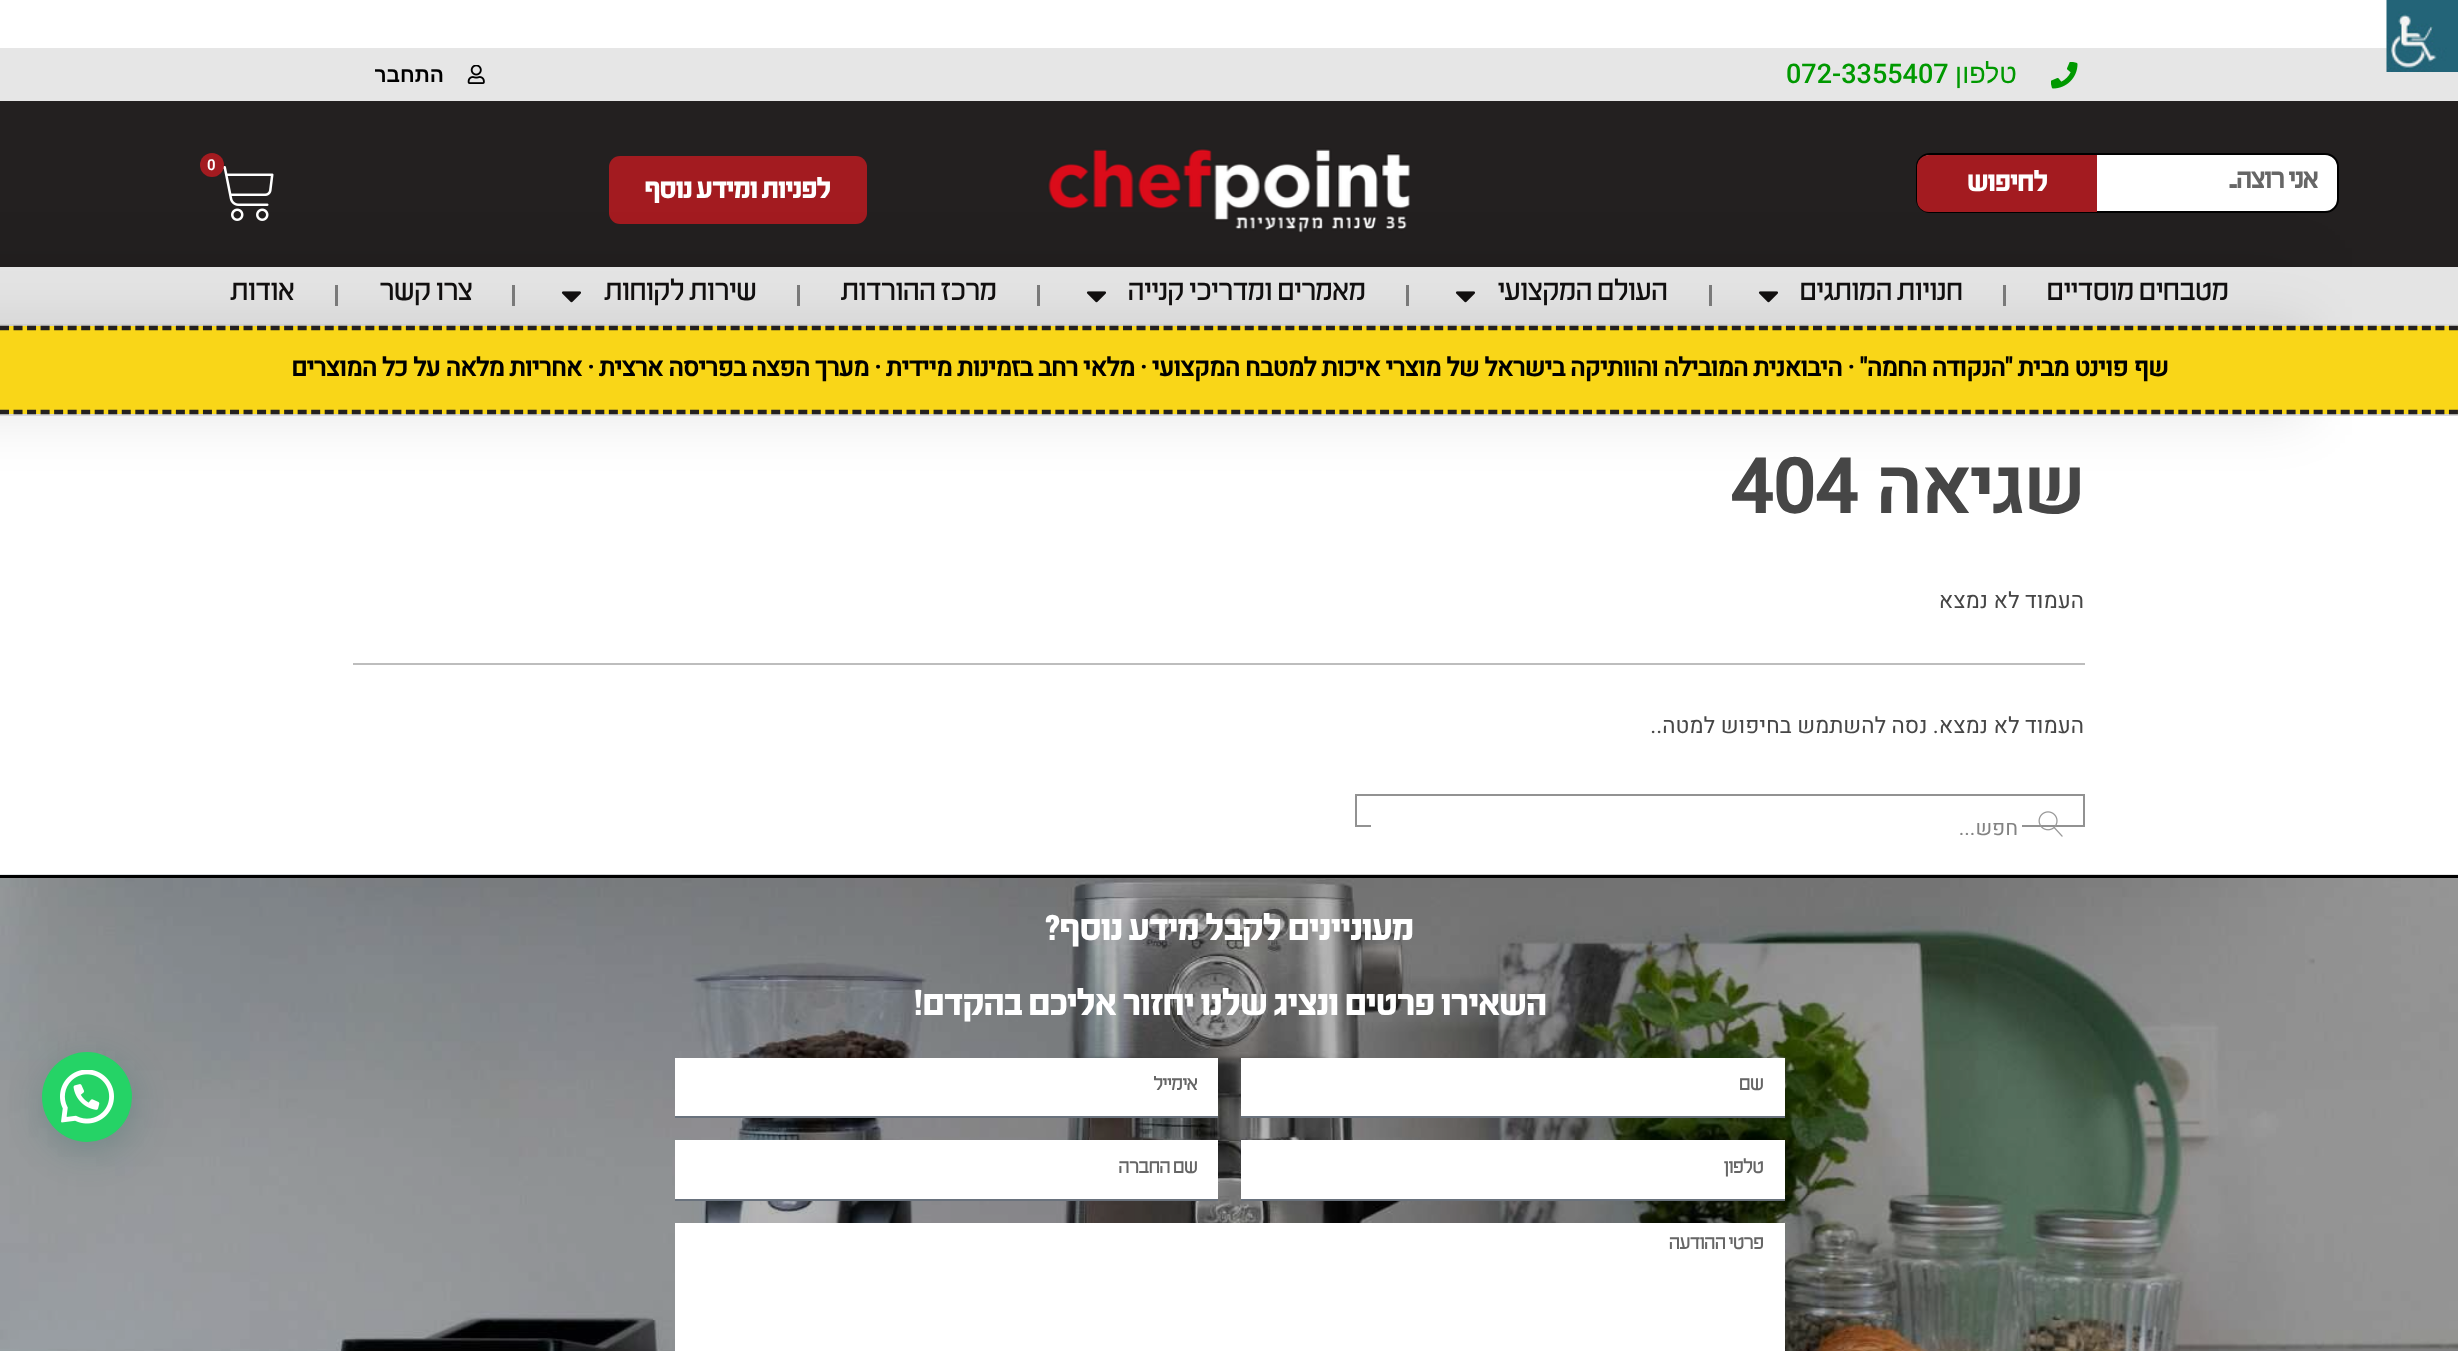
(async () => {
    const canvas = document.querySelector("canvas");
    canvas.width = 2458;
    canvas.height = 1351;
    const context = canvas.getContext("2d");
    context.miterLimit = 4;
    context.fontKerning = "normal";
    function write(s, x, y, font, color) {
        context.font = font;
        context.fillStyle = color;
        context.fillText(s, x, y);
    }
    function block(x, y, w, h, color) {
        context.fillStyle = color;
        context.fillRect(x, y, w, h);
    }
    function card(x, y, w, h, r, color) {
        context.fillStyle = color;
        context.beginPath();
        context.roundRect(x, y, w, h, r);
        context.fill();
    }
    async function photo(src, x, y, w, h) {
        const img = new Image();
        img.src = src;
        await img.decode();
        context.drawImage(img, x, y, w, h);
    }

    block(0, 0, 2458, 1351, "rgb(255, 255, 255)");
    block(0, 48, 2458, 53, "rgb(230, 230, 230)");
    await photo("media/1.png", 2386, 0, 72, 72);
    await photo("media/2.png", 2051, 62, 27, 27);
    context.direction = "rtl";
    write("טלפון", 2017, 83, "27px Liberation Sans", "rgb(0, 153, 0)");
    context.direction = "ltr";
    write("072-3355407", 1786, 83, "500 27px Roboto", "rgb(0, 153, 0)");
    await photo("media/3.png", 467, 65, 18, 19);
    context.save();
    context.beginPath();
    context.rect(375, 59, 855, 33);
    context.clip();
    context.direction = "rtl";
    write("התחבר", 444, 82, "bold 21px Liberation Sans", "rgb(0, 0, 0)");
    context.restore();
    block(0, 101, 2458, 166, "rgb(35, 32, 32)");
    await photo("media/4.png", 1047, 148, 363, 85);
    await photo("media/5.png", 223, 166, 51, 55);
    context.fillStyle = "rgb(163, 27, 32)";
    context.beginPath();
    context.arc(212, 165, 12, 0, Math.PI * 2);
    context.fill();
    write("0", 207, 170, "600 15px Roboto", "rgb(255, 255, 255)");
    context.beginPath();
    context.roundRect(1917, 154, 421, 58, 13);
    context.fill();
    context.strokeStyle = "rgb(0, 0, 0)";
    context.lineWidth = 2;
    context.stroke();
    context.letterSpacing = "-1.5px";
    context.direction = "rtl";
    write("אני רוצה..", 2317, 188, "bold 30px 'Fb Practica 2'", "rgb(102, 102, 102)");
    context.fillStyle = "rgb(163, 27, 32)";
    context.beginPath();
    context.roundRect(1917, 155, 180, 57, [12, 0, 0, 12]);
    context.fill();
    write("לחיפוש", 2047, 191, "bold 31.5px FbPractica", "rgb(255, 255, 255)");
    card(609, 156, 258, 68, 11, "rgb(163, 27, 32)");
    write("לפניות ומידע נוסף", 830, 198, "bold 31.5px FbPractica", "rgb(255, 255, 255)");
    context.fillStyle = "rgba(0, 0, 0, 0.1)";
    context.filter = "blur(28.5px)";
    context.beginPath();
    context.rect(-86, 267, 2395, 59);
    context.fill();
    context.filter = "none";
    block(0, 324, 2458, 2, "rgb(216, 216, 216)");
    block(0, 267, 2458, 57, "rgb(228, 228, 228)");
    context.fillStyle = "rgba(0, 0, 0, 0.1)";
    context.filter = "blur(28.5px)";
    context.beginPath();
    context.rect(-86, 326, 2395, 90);
    context.fill();
    context.filter = "none";
    write("מטבחים מוסדיים", 2228, 300, "33px Fb Practica", "rgb(17, 15, 15)");
    block(2003, 285, 3, 21, "rgb(122, 122, 122)");
    write("חנויות המותגים", 1962, 300, "33px Fb Practica", "rgb(17, 15, 15)");
    await photo("media/6.png", 1758, 291, 20, 12);
    block(1709, 285, 3, 21, "rgb(122, 122, 122)");
    write("העולם המקצועי", 1667, 300, "33px Fb Practica", "rgb(17, 15, 15)");
    await photo("media/6.png", 1455, 291, 20, 12);
    block(1406, 285, 3, 21, "rgb(122, 122, 122)");
    write("מאמרים ומדריכי קנייה", 1365, 300, "33px Fb Practica", "rgb(17, 15, 15)");
    await photo("media/6.png", 1086, 291, 20, 12);
    block(1037, 285, 3, 21, "rgb(122, 122, 122)");
    write("מרכז ההורדות", 996, 300, "33px Fb Practica", "rgb(17, 15, 15)");
    block(797, 285, 3, 21, "rgb(122, 122, 122)");
    write("שירות לקוחות", 756, 300, "33px Fb Practica", "rgb(17, 15, 15)");
    await photo("media/6.png", 561, 291, 20, 12);
    block(512, 285, 3, 21, "rgb(122, 122, 122)");
    write("צרו קשר", 472, 300, "33px Fb Practica", "rgb(17, 15, 15)");
    block(335, 285, 3, 21, "rgb(122, 122, 122)");
    write("אודות", 294, 300, "33px Fb Practica", "rgb(17, 15, 15)");
    block(0, 414, 2458, 2, "rgb(216, 216, 216)");
    block(0, 326, 2458, 88, "rgb(249, 214, 24)");
    context.beginPath();
    context.moveTo(0, 328);
    context.lineTo(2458.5, 328);
    context.strokeStyle = "rgb(35, 32, 32)";
    context.lineWidth = 4.5;
    context.setLineDash([9, 4.53]);
    context.stroke();
    context.beginPath();
    context.moveTo(0, 412);
    context.lineTo(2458.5, 412);
    context.stroke();
    context.letterSpacing = "-0.75px";
    write("שף פוינט מבית \"הנקודה החמה\" · היבואנית המובילה והוותיקה בישראל של מוצרי איכות למטבח המקצועי · מלאי רחב בזמינות מיידית · מערך הפצה בפריסה ארצית · אחריות מלאה על כל המוצרים", 2168, 376, "bold 25.5px Heebo", "rgb(0, 0, 0)");
    context.letterSpacing = "0px";
    write("שגיאה", 2084, 513, "bold 75px Heebo", "rgb(70, 70, 70)");
    context.direction = "ltr";
    write("404", 1730, 513, "bold 75px Heebo", "rgb(70, 70, 70)");
    context.direction = "rtl";
    write("העמוד לא נמצא", 2084, 608, "22.5px Heebo", "rgb(70, 70, 70)");
    block(353, 663, 1732, 2, "rgb(189, 189, 189)");
    write("העמוד לא נמצא. נסה להשתמש בחיפוש למטה..", 2084, 733, "22.5px Heebo", "rgb(70, 70, 70)");
    context.strokeStyle = "rgb(146, 146, 146)";
    context.lineWidth = 2;
    context.setLineDash([]);
    context.strokeRect(1356, 795, 728, 31);
    await photo("media/7.png", 2038, 811, 25, 26);
    block(1371, 825, 651, 2, "rgb(255, 255, 255)");
    write("חפש...", 2018, 835, "21px Heebo", "rgb(131, 131, 131)");
    await photo("media/8.png", 0, 874, 2458, 477);
    block(0, 875, 2458, 3, "rgb(0, 0, 0)");
    context.letterSpacing = "-1.5px";
    write("מעוניינים לקבל מידע נוסף?", 1413, 940, "bold 40.5px FbPractica", "rgb(255, 255, 255)");
    write("השאירו פרטים ונציג שלנו יחזור אליכם בהקדם!", 1546, 1015, "bold 40.5px FbPractica", "rgb(255, 255, 255)");
    block(1241, 1058, 544, 58, "rgb(255, 255, 255)");
    block(1241, 1116, 544, 2, "rgb(105, 114, 125)");
    write("שם", 1763, 1090, "22.5px Fb Practica", "rgb(102, 102, 102)");
    block(675, 1058, 543, 58, "rgb(255, 255, 255)");
    block(675, 1116, 543, 2, "rgb(105, 114, 125)");
    context.save();
    context.beginPath();
    context.rect(696, 1076, 501, 22);
    context.clip();
    write("אימייל", 1197, 1090, "22.5px Fb Practica", "rgb(102, 102, 102)");
    context.restore();
    block(1241, 1140, 544, 59, "rgb(255, 255, 255)");
    block(1241, 1199, 544, 2, "rgb(105, 114, 125)");
    write("טלפון", 1763, 1173, "22.5px Fb Practica", "rgb(102, 102, 102)");
    block(675, 1140, 543, 59, "rgb(255, 255, 255)");
    block(675, 1199, 543, 2, "rgb(105, 114, 125)");
    write("שם החברה", 1197, 1173, "22.5px Fb Practica", "rgb(102, 102, 102)");
    block(675, 1223, 1110, 128, "rgb(255, 255, 255)");
    write("פרטי ההודעה", 1763, 1249, "22.5px Fb Practica", "rgb(102, 102, 102)");
    context.fillStyle = "rgba(7, 94, 84, 0.24)";
    context.filter = "blur(18px)";
    context.beginPath();
    context.roundRect(44, 1061, 90, 90, 45);
    context.fill();
    context.filter = "none";
    context.fillStyle = "rgb(37, 211, 102)";
    context.beginPath();
    context.arc(87, 1097, 45, 0, Math.PI * 2);
    context.fill();
    await photo("media/9.png", 60, 1070, 54, 54);
})();
